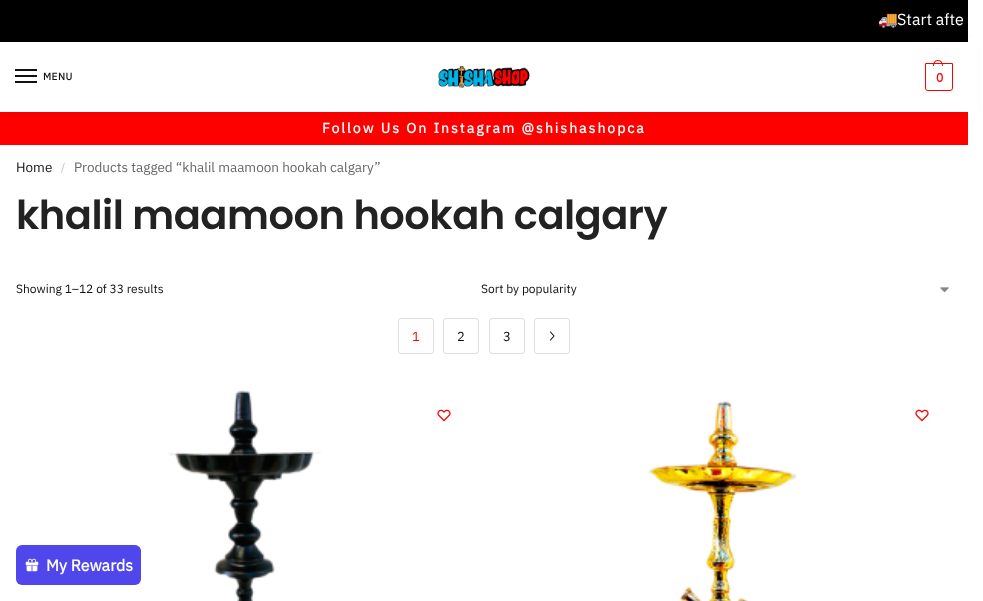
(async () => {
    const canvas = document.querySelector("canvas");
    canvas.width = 983;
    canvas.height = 601;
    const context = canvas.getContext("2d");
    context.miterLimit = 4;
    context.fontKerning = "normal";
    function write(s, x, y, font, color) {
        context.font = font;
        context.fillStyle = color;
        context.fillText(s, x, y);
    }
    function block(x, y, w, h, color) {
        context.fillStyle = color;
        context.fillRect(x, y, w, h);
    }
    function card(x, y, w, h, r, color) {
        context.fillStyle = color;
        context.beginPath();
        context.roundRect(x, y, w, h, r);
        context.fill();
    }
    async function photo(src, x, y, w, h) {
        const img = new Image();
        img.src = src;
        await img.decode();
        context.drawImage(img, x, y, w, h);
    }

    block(0, 0, 983, 601, "rgb(255, 255, 255)");
    block(0, 0, 968, 42, "rgb(0, 0, 0)");
    write("🚚", 878, 25, "16px Noto Color Emoji", "rgb(255, 255, 255)");
    write("Start afte", 897, 25, "16px IBM Plex Sans", "rgb(255, 255, 255)");
    block(0, 112, 968, 33, "rgb(255, 0, 0)");
    context.save();
    context.beginPath();
    context.moveTo(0, 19);
    context.lineTo(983, 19);
    context.lineTo(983, 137);
    context.lineTo(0, 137);
    context.closePath();
    context.moveTo(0, 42);
    context.lineTo(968, 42);
    context.lineTo(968, 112);
    context.lineTo(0, 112);
    context.closePath();
    context.clip("evenodd");
    context.fillStyle = "rgba(0, 0, 0, 0.08)";
    context.filter = "blur(7.5px)";
    context.beginPath();
    context.rect(0, 43, 968, 70);
    context.fill();
    context.filter = "none";
    context.restore();
    block(15, 69, 22, 2, "rgb(17, 17, 17)");
    block(15, 75, 22, 2, "rgb(17, 17, 17)");
    context.letterSpacing = "0.5px";
    write("MENU", 43, 80, "bold 10px IBM Plex Sans", "rgb(17, 17, 17)");
    block(15, 81, 22, 2, "rgb(17, 17, 17)");
    await photo("media/1.png", 438, 66, 92, 22);
    context.beginPath();
    context.roundRect(925.5, 63.5, 27, 27, [0, 0, 2.5, 2.5]);
    context.strokeStyle = "rgb(255, 0, 0)";
    context.stroke();
    context.fillStyle = "rgb(255, 0, 0)";
    context.beginPath();
    context.moveTo(938, 60);
    context.bezierCurveTo(941.5, 60, 943, 63, 943, 66);
    context.lineTo(933, 66);
    context.bezierCurveTo(933, 63, 934.5, 60, 938, 60);
    context.closePath();
    context.moveTo(938, 61);
    context.bezierCurveTo(941, 61, 942, 63.5, 942, 66);
    context.lineTo(934, 66);
    context.bezierCurveTo(934, 63.5, 935, 61, 938, 61);
    context.closePath();
    context.fill("evenodd");
    context.letterSpacing = "-1px";
    write("0", 936, 82, "500 12px Poppins", "rgb(255, 0, 0)");
    block(968, 38, 9, 80, "rgb(255, 255, 255)");
    context.letterSpacing = "2px";
    write("Follow Us On Instagram @shishashopca", 322, 133, "bold 14px IBM Plex Sans", "rgb(255, 255, 255)");
    context.letterSpacing = "0px";
    write("Home", 16, 172, "13.5px IBM Plex Sans", "rgb(17, 17, 17)");
    write("/", 61, 171, "11px IBM Plex Sans", "rgb(194, 194, 194)");
    write("Products tagged “khalil maamoon hookah calgary”", 74, 172, "13.5px IBM Plex Sans", "rgb(102, 102, 102)");
    context.letterSpacing = "-0.5px";
    write("khalil maamoon hookah calgary", 16, 229, "600 40px Poppins", "rgb(34, 34, 34)");
    context.letterSpacing = "0px";
    write("Showing 1–12 of 33 results", 16, 293, "12px IBM Plex Sans", "rgb(17, 17, 17)");
    await photo("media/2.png", 940, 287, 9, 6);
    write("Sort by popularity", 481, 293, "12px IBM Plex Sans", "rgb(17, 17, 17)");
    context.beginPath();
    context.roundRect(398.5, 318.5, 35, 35, 2.5);
    context.strokeStyle = "rgb(223, 222, 222)";
    context.stroke();
    write("1", 412, 341, "13px IBM Plex Sans", "rgb(255, 0, 0)");
    context.beginPath();
    context.roundRect(443.5, 318.5, 35, 35, 2.5);
    context.stroke();
    write("2", 457, 341, "13px IBM Plex Sans", "rgb(17, 17, 17)");
    context.beginPath();
    context.roundRect(489.5, 318.5, 35, 35, 2.5);
    context.stroke();
    write("3", 503, 341, "13px IBM Plex Sans", "rgb(17, 17, 17)");
    context.beginPath();
    context.roundRect(534.5, 318.5, 35, 35, 2.5);
    context.stroke();
    context.beginPath();
    context.moveTo(550.5, 332);
    context.lineTo(554, 336);
    context.lineTo(550.5, 340);
    context.strokeStyle = "rgb(17, 17, 17)";
    context.lineWidth = 1.1;
    context.lineCap = "round";
    context.lineJoin = "round";
    context.stroke();
    await photo("media/3.png", 168, 390, 153, 211);
    await photo("media/4.png", 437, 409, 14, 13);
    await photo("media/5.png", 648, 401, 149, 200);
    await photo("media/4.png", 915, 409, 14, 13);
    card(16, 545, 125, 40, 6, "rgb(79, 71, 235)");
    await photo("media/6.png", 25, 558, 14, 14);
    write("My Rewards", 46, 571, "bold 16px IBM Plex Sans", "rgb(255, 255, 255)");
})();
